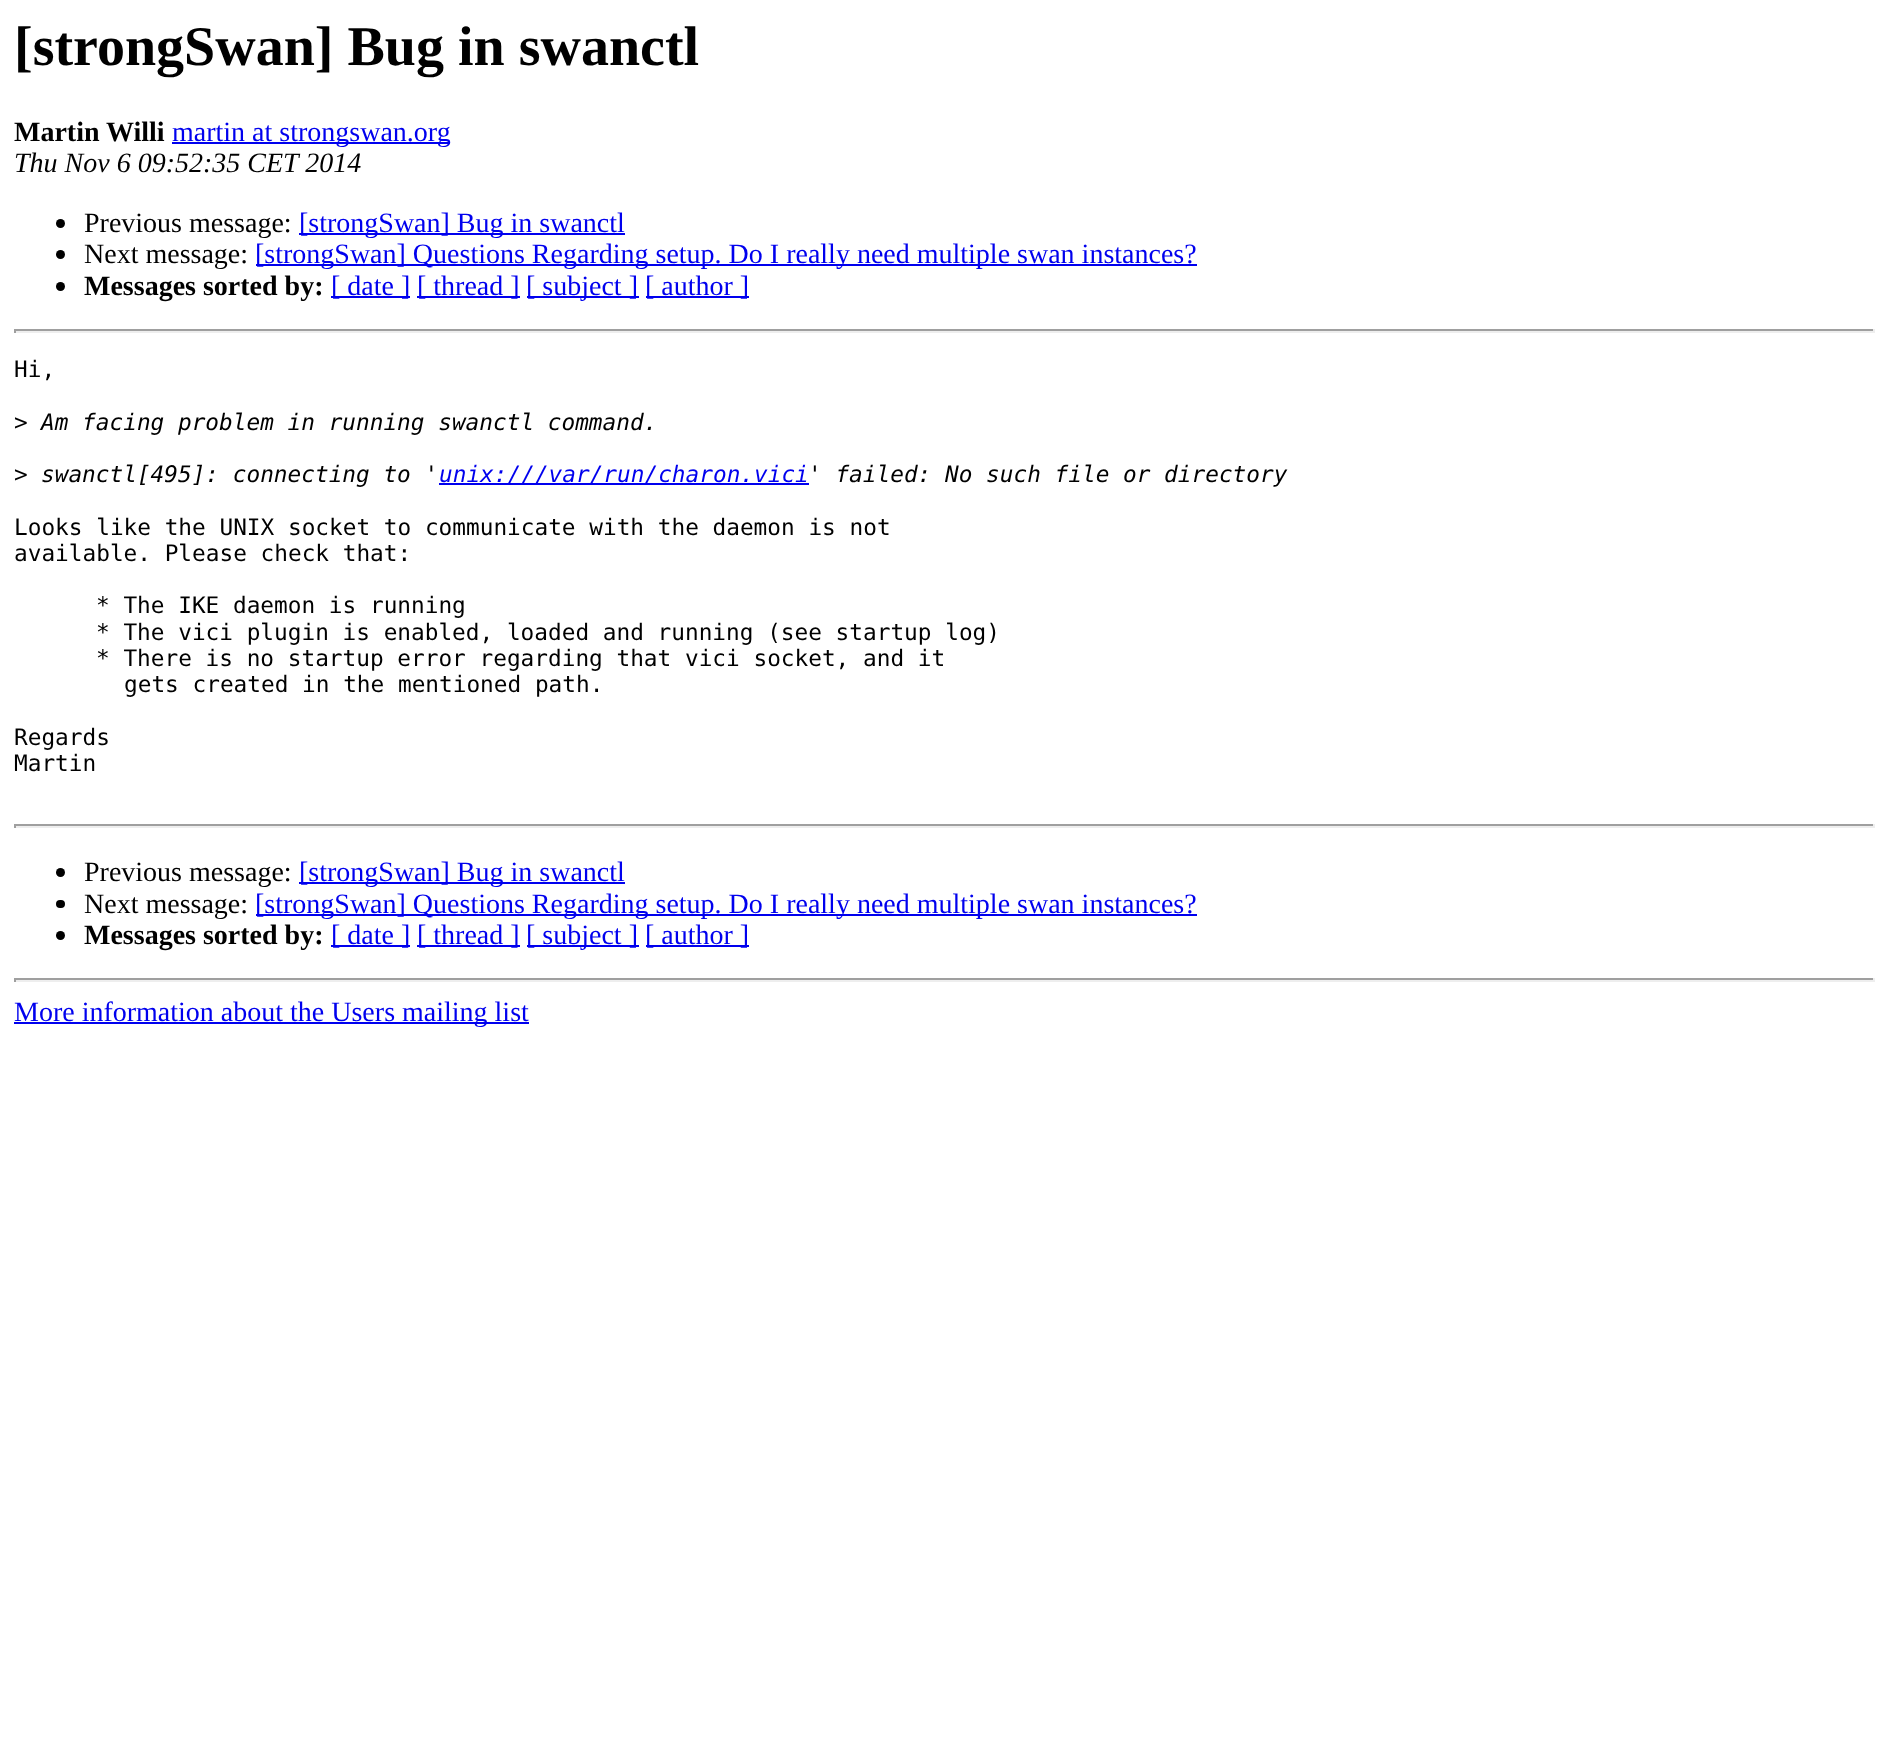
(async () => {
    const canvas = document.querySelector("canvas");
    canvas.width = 1888;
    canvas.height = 1744;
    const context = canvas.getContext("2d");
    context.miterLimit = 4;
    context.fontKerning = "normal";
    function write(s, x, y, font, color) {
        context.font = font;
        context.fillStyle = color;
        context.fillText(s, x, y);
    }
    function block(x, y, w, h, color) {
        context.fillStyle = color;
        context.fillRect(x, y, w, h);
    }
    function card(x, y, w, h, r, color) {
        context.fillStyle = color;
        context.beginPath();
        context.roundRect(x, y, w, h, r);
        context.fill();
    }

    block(0, 0, 1888, 1744, "rgb(255, 255, 255)");
    write("[strongSwan] Bug in swanctl", 14, 65, "bold 56px Liberation Serif", "rgb(0, 0, 0)");
    write("Martin Willi", 14, 141, "bold 28px Liberation Serif", "rgb(0, 0, 0)");
    block(172, 142, 278, 2, "rgb(0, 0, 238)");
    write("martin at strongswan.org", 172, 141, "28px Liberation Serif", "rgb(0, 0, 238)");
    write("Thu Nov 6 09:52:35 CET 2014", 14, 172, "italic 28px Liberation Serif", "rgb(0, 0, 0)");
    context.beginPath();
    context.arc(60.5, 223.5, 4.5, 0, Math.PI * 2);
    context.fill();
    write("Previous message:", 84, 232, "28px Liberation Serif", "rgb(0, 0, 0)");
    block(299, 233, 326, 2, "rgb(0, 0, 238)");
    write("[strongSwan] Bug in swanctl", 299, 232, "28px Liberation Serif", "rgb(0, 0, 238)");
    context.fillStyle = "rgb(0, 0, 0)";
    context.beginPath();
    context.arc(60.5, 254.5, 4.5, 0, Math.PI * 2);
    context.fill();
    write("Next message:", 84, 263, "28px Liberation Serif", "rgb(0, 0, 0)");
    block(256, 264, 941, 2, "rgb(0, 0, 238)");
    write("[strongSwan] Questions Regarding setup. Do I really need multiple swan instances?", 255, 263, "28px Liberation Serif", "rgb(0, 0, 238)");
    context.fillStyle = "rgb(0, 0, 0)";
    context.beginPath();
    context.arc(60.5, 286.5, 4.5, 0, Math.PI * 2);
    context.fill();
    write("Messages sorted by:", 84, 295, "bold 28px Liberation Serif", "rgb(0, 0, 0)");
    block(331, 296, 79, 2, "rgb(0, 0, 238)");
    write("[ date ]", 331, 295, "28px Liberation Serif", "rgb(0, 0, 238)");
    block(417, 296, 103, 2, "rgb(0, 0, 238)");
    write("[ thread ]", 417, 295, "28px Liberation Serif", "rgb(0, 0, 238)");
    block(527, 296, 112, 2, "rgb(0, 0, 238)");
    write("[ subject ]", 526, 295, "28px Liberation Serif", "rgb(0, 0, 238)");
    block(646, 296, 103, 2, "rgb(0, 0, 238)");
    write("[ author ]", 645, 295, "28px Liberation Serif", "rgb(0, 0, 238)");
    block(14, 329, 1860, 2, "rgb(159, 159, 159)");
    block(1873, 329, 2, 4, "rgb(238, 238, 238)");
    block(14, 331, 1860, 2, "rgb(238, 238, 238)");
    block(14, 329, 2, 4, "rgb(159, 159, 159)");
    write("Hi,", 14, 377, "22.75px DejaVu Sans Mono", "rgb(0, 0, 0)");
    write(">", 14, 430, "22.75px DejaVu Sans Mono", "rgb(0, 0, 0)");
    write("Am facing problem in running swanctl command.", 41, 430, "italic 22.75px DejaVu Sans Mono", "rgb(0, 0, 0)");
    write(">", 14, 482, "22.75px DejaVu Sans Mono", "rgb(0, 0, 0)");
    write("swanctl[495]: connecting to '", 41, 482, "italic 22.75px DejaVu Sans Mono", "rgb(0, 0, 0)");
    block(439, 483, 370, 2, "rgb(0, 0, 238)");
    write("unix:///var/run/charon.vici", 439, 482, "italic 22.75px DejaVu Sans Mono", "rgb(0, 0, 238)");
    write("' failed: No such file or directory", 808, 482, "italic 22.75px DejaVu Sans Mono", "rgb(0, 0, 0)");
    write("Looks like the UNIX socket to communicate with the daemon is not", 14, 535, "22.75px DejaVu Sans Mono", "rgb(0, 0, 0)");
    write("available. Please check that:", 14, 561, "22.75px DejaVu Sans Mono", "rgb(0, 0, 0)");
    write("* The IKE daemon is running", 96, 613, "22.75px DejaVu Sans Mono", "rgb(0, 0, 0)");
    write("* The vici plugin is enabled, loaded and running (see startup log)", 96, 640, "22.75px DejaVu Sans Mono", "rgb(0, 0, 0)");
    write("* There is no startup error regarding that vici socket, and it", 96, 666, "22.75px DejaVu Sans Mono", "rgb(0, 0, 0)");
    write("gets created in the mentioned path.", 124, 692, "22.75px DejaVu Sans Mono", "rgb(0, 0, 0)");
    write("Regards", 14, 745, "22.75px DejaVu Sans Mono", "rgb(0, 0, 0)");
    write("Martin", 14, 771, "22.75px DejaVu Sans Mono", "rgb(0, 0, 0)");
    block(14, 824, 1860, 2, "rgb(159, 159, 159)");
    block(1873, 824, 2, 4, "rgb(238, 238, 238)");
    block(14, 826, 1860, 2, "rgb(238, 238, 238)");
    block(14, 824, 2, 4, "rgb(159, 159, 159)");
    context.fillStyle = "rgb(0, 0, 0)";
    context.beginPath();
    context.arc(60.5, 872.5, 4.5, 0, Math.PI * 2);
    context.fill();
    write("Previous message:", 84, 881, "28px Liberation Serif", "rgb(0, 0, 0)");
    block(299, 882, 326, 2, "rgb(0, 0, 238)");
    write("[strongSwan] Bug in swanctl", 299, 881, "28px Liberation Serif", "rgb(0, 0, 238)");
    card(56, 900, 9, 8, 4, "rgb(0, 0, 0)");
    write("Next message:", 84, 913, "28px Liberation Serif", "rgb(0, 0, 0)");
    block(256, 914, 941, 2, "rgb(0, 0, 238)");
    write("[strongSwan] Questions Regarding setup. Do I really need multiple swan instances?", 255, 913, "28px Liberation Serif", "rgb(0, 0, 238)");
    context.fillStyle = "rgb(0, 0, 0)";
    context.beginPath();
    context.arc(60.5, 935.5, 4.5, 0, Math.PI * 2);
    context.fill();
    write("Messages sorted by:", 84, 944, "bold 28px Liberation Serif", "rgb(0, 0, 0)");
    block(331, 945, 79, 2, "rgb(0, 0, 238)");
    write("[ date ]", 331, 944, "28px Liberation Serif", "rgb(0, 0, 238)");
    block(417, 945, 103, 2, "rgb(0, 0, 238)");
    write("[ thread ]", 417, 944, "28px Liberation Serif", "rgb(0, 0, 238)");
    block(527, 945, 112, 2, "rgb(0, 0, 238)");
    write("[ subject ]", 526, 944, "28px Liberation Serif", "rgb(0, 0, 238)");
    block(646, 945, 103, 2, "rgb(0, 0, 238)");
    write("[ author ]", 645, 944, "28px Liberation Serif", "rgb(0, 0, 238)");
    block(14, 978, 1860, 2, "rgb(159, 159, 159)");
    block(1873, 978, 2, 4, "rgb(238, 238, 238)");
    block(14, 980, 1860, 2, "rgb(238, 238, 238)");
    block(14, 978, 2, 4, "rgb(159, 159, 159)");
    block(14, 1022, 515, 2, "rgb(0, 0, 238)");
    write("More information about the Users mailing list", 14, 1021, "28px Liberation Serif", "rgb(0, 0, 238)");
})();
